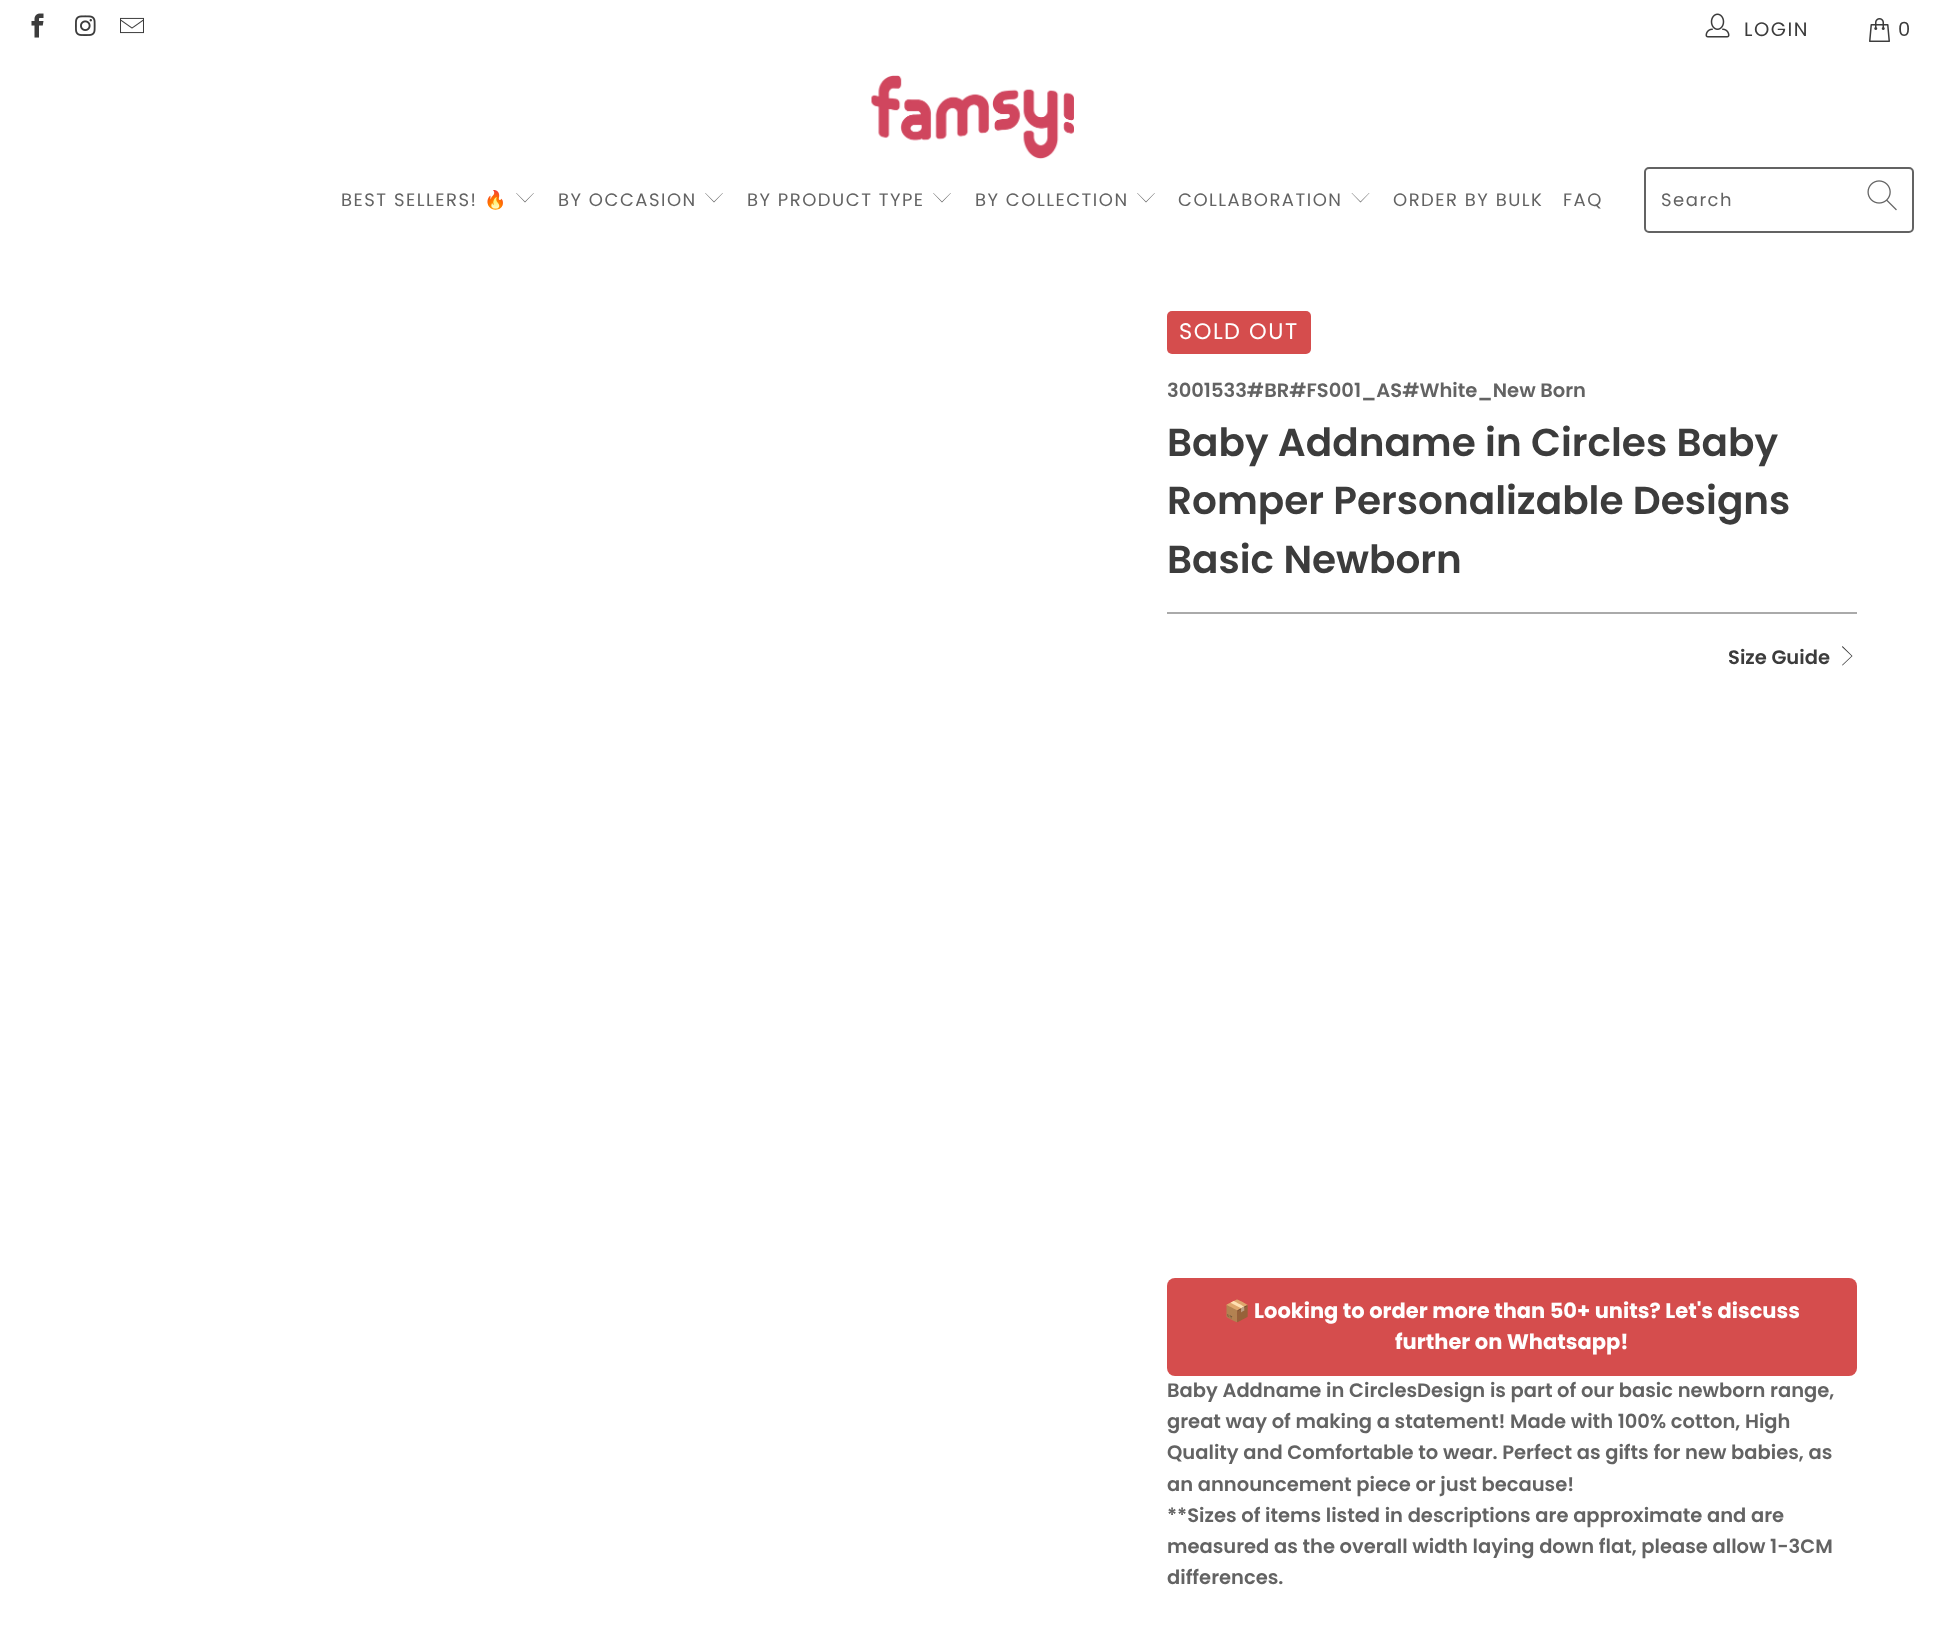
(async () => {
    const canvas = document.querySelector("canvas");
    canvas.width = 1944;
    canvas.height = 1627;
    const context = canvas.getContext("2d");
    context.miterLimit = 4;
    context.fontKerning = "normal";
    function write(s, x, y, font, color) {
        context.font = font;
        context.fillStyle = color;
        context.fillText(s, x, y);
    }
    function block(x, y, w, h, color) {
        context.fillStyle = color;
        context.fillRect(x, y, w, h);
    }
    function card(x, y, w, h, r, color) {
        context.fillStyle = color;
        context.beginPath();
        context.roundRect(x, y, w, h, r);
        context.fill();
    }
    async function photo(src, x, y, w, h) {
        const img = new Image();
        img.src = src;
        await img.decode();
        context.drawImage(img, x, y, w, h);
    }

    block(0, 0, 1944, 1627, "rgb(255, 255, 255)");
    await photo("media/1.png", 31, 13, 13, 25);
    await photo("media/2.png", 75, 15, 21, 21);
    await photo("media/3.png", 120, 17, 24, 17);
    await photo("media/4.png", 1705, 13, 25, 25);
    context.letterSpacing = "1.5px";
    write("LOGIN", 1744, 36, "19.5px Poppins", "rgb(60, 60, 60)");
    await photo("media/5.png", 1869, 18, 21, 24);
    write("0", 1898, 36, "19.5px Poppins", "rgb(60, 60, 60)");
    await photo("media/6.png", 871, 75, 203, 84);
    write("BEST SELLERS!", 341, 206, "18px Poppins", "rgb(99, 99, 99)");
    write("🔥", 484, 206, "18px Noto Color Emoji", "rgb(99, 99, 99)");
    context.beginPath();
    context.moveTo(525, 202.5);
    context.lineTo(516, 193);
    context.lineTo(516.5, 193);
    context.lineTo(525, 201.5);
    context.lineTo(533.5, 193);
    context.lineTo(534, 193);
    context.closePath();
    context.fill();
    write("BY OCCASION", 558, 206, "18px Poppins", "rgb(99, 99, 99)");
    context.beginPath();
    context.moveTo(714, 202.5);
    context.lineTo(705, 193);
    context.lineTo(705.5, 193);
    context.lineTo(714, 201.5);
    context.lineTo(722.5, 193);
    context.lineTo(723, 193);
    context.closePath();
    context.fill();
    write("BY PRODUCT TYPE", 747, 206, "18px Poppins", "rgb(99, 99, 99)");
    context.beginPath();
    context.moveTo(942, 202.5);
    context.lineTo(933, 193);
    context.lineTo(933.5, 193);
    context.lineTo(942, 201.5);
    context.lineTo(950.5, 193);
    context.lineTo(951, 193);
    context.closePath();
    context.fill();
    write("BY COLLECTION", 975, 206, "18px Poppins", "rgb(99, 99, 99)");
    context.beginPath();
    context.moveTo(1146, 202.5);
    context.lineTo(1137, 193);
    context.lineTo(1137.5, 193);
    context.lineTo(1146, 201.5);
    context.lineTo(1154.5, 193);
    context.lineTo(1155, 193);
    context.closePath();
    context.fill();
    write("COLLABORATION", 1178, 206, "18px Poppins", "rgb(99, 99, 99)");
    context.beginPath();
    context.moveTo(1360.5, 202.5);
    context.lineTo(1351.5, 193);
    context.lineTo(1352, 193);
    context.lineTo(1360.5, 201.5);
    context.lineTo(1369, 193);
    context.lineTo(1369.5, 193);
    context.closePath();
    context.fill();
    write("ORDER BY BULK", 1393, 206, "18px Poppins", "rgb(99, 99, 99)");
    write("FAQ", 1563, 206, "18px Poppins", "rgb(99, 99, 99)");
    context.beginPath();
    context.roundRect(1645, 168, 268, 64, 4);
    context.strokeStyle = "rgb(99, 99, 99)";
    context.lineWidth = 2;
    context.stroke();
    write("Search", 1661, 206, "18px Poppins", "rgb(99, 99, 99)");
    await photo("media/7.png", 1867, 180, 30, 31);
    card(1167, 311, 144, 43, 5, "rgb(213, 77, 77)");
    write("SOLD OUT", 1179, 339, "22.5px Poppins", "rgb(255, 255, 255)");
    context.letterSpacing = "0px";
    write("3001533#BR#FS001_AS#White_New Born", 1167, 397, "600 19.5px Poppins", "rgb(99, 99, 99)");
    write("Baby Addname in Circles Baby", 1167, 456, "600 39px Poppins", "rgb(60, 60, 60)");
    write("Romper Personalizable Designs", 1167, 514, "600 39px Poppins", "rgb(60, 60, 60)");
    write("Basic Newborn", 1167, 573, "600 39px Poppins", "rgb(60, 60, 60)");
    block(1167, 612, 690, 2, "rgb(170, 170, 170)");
    write("Size Guide", 1728, 664, "600 19.5px Poppins", "rgb(60, 60, 60)");
    context.beginPath();
    context.moveTo(1842.5, 665.5);
    context.lineTo(1842, 665);
    context.lineTo(1851.5, 656);
    context.lineTo(1842, 647);
    context.lineTo(1842.5, 646);
    context.lineTo(1852.5, 656);
    context.closePath();
    context.fill();
    card(1167, 1278, 690, 98, 8, "rgb(213, 77, 77)");
    write("📦", 1224, 1318, "bold 21px Noto Color Emoji", "rgb(255, 255, 255)");
    write("Looking to order more than 50+ units? Let's discuss", 1254, 1318, "bold 21px Poppins", "rgb(255, 255, 255)");
    write("further on Whatsapp!", 1395, 1349, "bold 21px Poppins", "rgb(255, 255, 255)");
    write("Baby Addname in CirclesDesign is part of our basic newborn range,", 1167, 1397, "600 19.5px Poppins", "rgb(99, 99, 99)");
    write("great way of making a statement! Made with 100% cotton, High", 1167, 1428, "600 19.5px Poppins", "rgb(99, 99, 99)");
    write("Quality and Comfortable to wear. Perfect as gifts for new babies, as", 1167, 1459, "600 19.5px Poppins", "rgb(99, 99, 99)");
    write("an announcement piece or just because!", 1167, 1491, "600 19.5px Poppins", "rgb(99, 99, 99)");
    write("**Sizes of items listed in descriptions are approximate and are", 1167, 1522, "600 19.5px Poppins", "rgb(99, 99, 99)");
    write("measured as the overall width laying down flat, please allow 1-3CM", 1167, 1553, "600 19.5px Poppins", "rgb(99, 99, 99)");
    write("differences.", 1167, 1584, "600 19.5px Poppins", "rgb(99, 99, 99)");
})();
